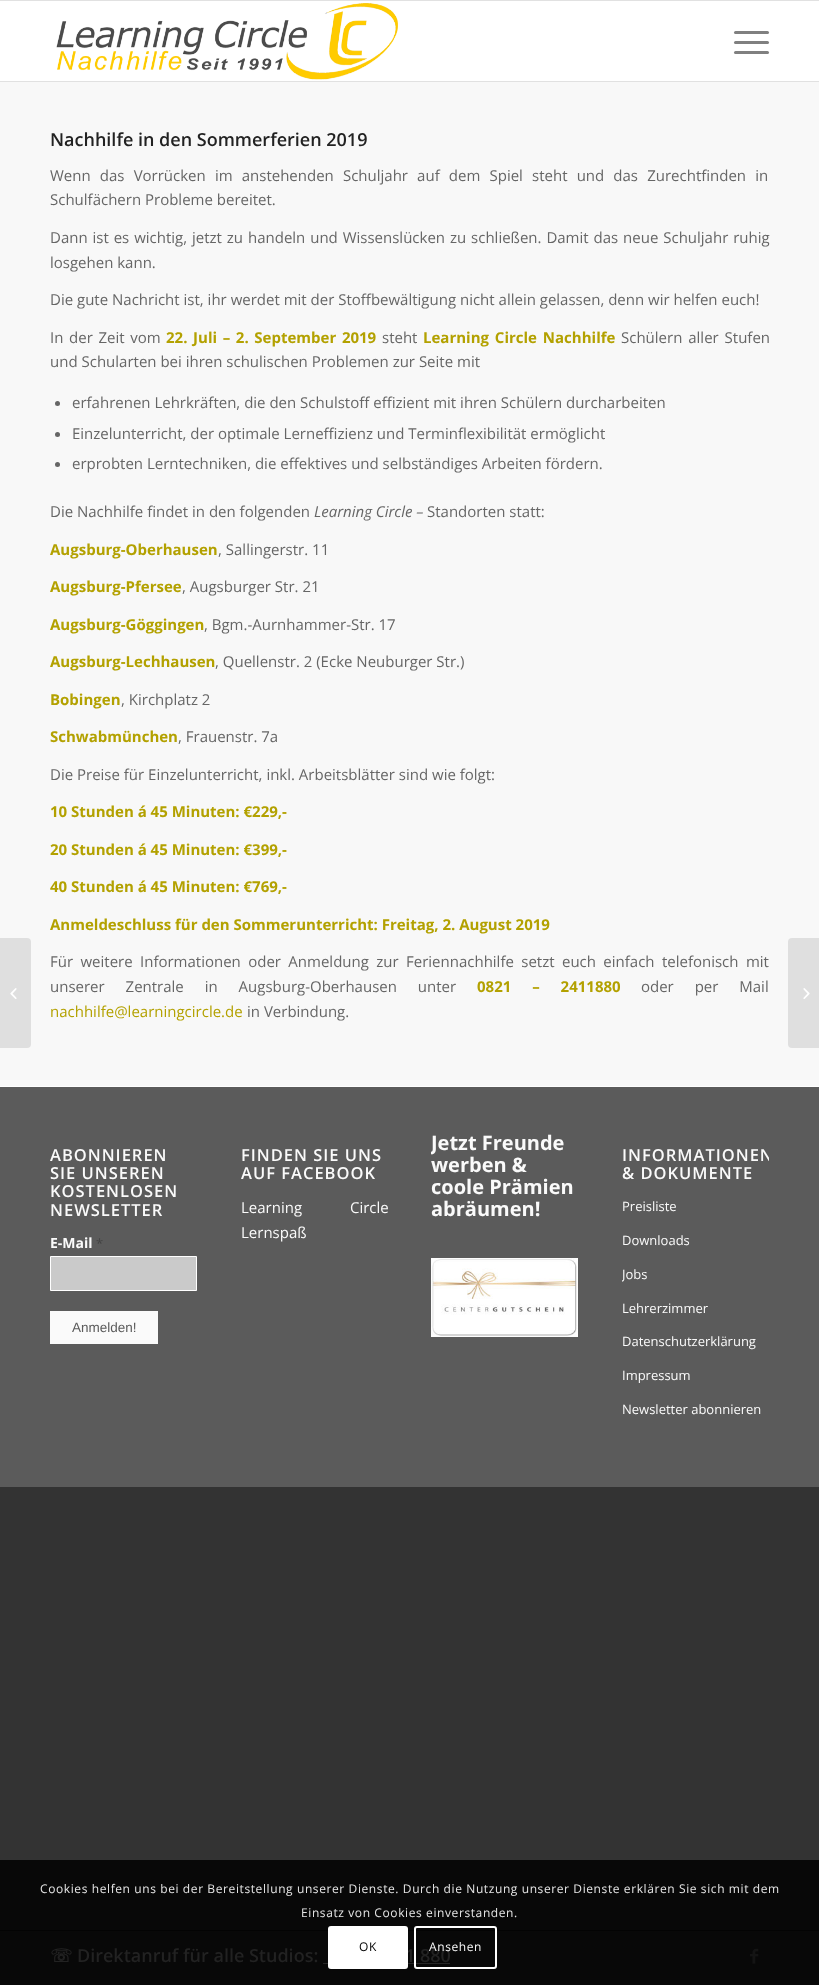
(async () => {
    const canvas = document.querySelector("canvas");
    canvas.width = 819;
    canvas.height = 1985;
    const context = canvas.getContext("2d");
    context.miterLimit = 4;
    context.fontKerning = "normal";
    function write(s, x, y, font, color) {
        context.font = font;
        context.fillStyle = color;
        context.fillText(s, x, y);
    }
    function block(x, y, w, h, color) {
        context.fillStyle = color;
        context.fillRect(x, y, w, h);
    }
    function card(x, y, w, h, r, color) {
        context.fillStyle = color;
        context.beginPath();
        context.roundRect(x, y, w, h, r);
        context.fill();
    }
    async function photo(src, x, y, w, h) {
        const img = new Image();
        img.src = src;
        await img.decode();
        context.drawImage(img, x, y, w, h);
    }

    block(0, 0, 819, 1985, "rgb(51, 51, 51)");
    block(0, 1860, 819, 125, "rgb(8, 8, 8)");
    block(0, 0, 819, 1, "rgb(225, 225, 225)");
    block(0, 81, 819, 1, "rgb(225, 225, 225)");
    block(0, 1, 819, 80, "rgb(255, 255, 255)");
    await photo("media/1.png", 56, 3, 342, 77);
    card(734, 41, 35, 3, 1.5, "rgb(128, 128, 128)");
    card(734, 31, 35, 3, 1.5, "rgb(128, 128, 128)");
    card(734, 51, 35, 3, 1.5, "rgb(128, 128, 128)");
    block(0, 82, 819, 1004, "rgb(248, 248, 248)");
    context.fillStyle = "rgb(223, 223, 223)";
    context.beginPath();
    context.roundRect(0, 938, 31, 110, [0, 4, 4, 0]);
    context.fill();
    await photo("media/2.png", 10, 988, 7, 11);
    write("Nachhilfe in den Sommerferien 2019", 50, 146, "600 18px Open Sans", "rgb(34, 34, 34)");
    context.wordSpacing = "5.25px";
    write("Wenn das Vorrücken im anstehenden Schuljahr auf dem Spiel steht und das Zurechtfinden in", 50, 181, "15px Open Sans", "rgb(102, 102, 102)");
    context.wordSpacing = "0px";
    write("Schulfächern Probleme bereitet.", 50, 205, "15px Open Sans", "rgb(102, 102, 102)");
    context.wordSpacing = "1px";
    write("Dann ist es wichtig, jetzt zu handeln und Wissenslücken zu schließen. Damit das neue Schuljahr ruhig", 50, 243, "15px Open Sans", "rgb(102, 102, 102)");
    context.wordSpacing = "0px";
    write("losgehen kann.", 50, 268, "15px Open Sans", "rgb(102, 102, 102)");
    write("Die gute Nachricht ist, ihr werdet mit der Stoffbewältigung nicht allein gelassen, denn wir helfen euch!", 50, 305, "15px Open Sans", "rgb(102, 102, 102)");
    context.wordSpacing = "1.75px";
    write("In der Zeit vom", 50, 343, "15px Open Sans", "rgb(102, 102, 102)");
    write("22. Juli – 2. September 2019", 166, 343, "bold 15px Open Sans", "rgb(179, 161, 0)");
    context.wordSpacing = "0px";
    write("steht", 382, 343, "15px Open Sans", "rgb(102, 102, 102)");
    context.wordSpacing = "2px";
    write("Learning Circle Nachhilfe", 423, 343, "bold 15px Open Sans", "rgb(179, 161, 0)");
    write("Schülern aller Stufen", 621, 343, "15px Open Sans", "rgb(102, 102, 102)");
    context.wordSpacing = "0px";
    write("und Schularten bei ihren schulischen Problemen zur Seite mit", 50, 367, "15px Open Sans", "rgb(102, 102, 102)");
    context.beginPath();
    context.arc(57.5, 403.5, 2.5, 0, Math.PI * 2);
    context.fill();
    write("erfahrenen Lehrkräften, die den Schulstoff effizient mit ihren Schülern durcharbeiten", 72, 408, "15px Open Sans", "rgb(102, 102, 102)");
    context.beginPath();
    context.arc(57.5, 434.5, 2.5, 0, Math.PI * 2);
    context.fill();
    write("Einzelunterricht, der optimale Lerneffizienz und Terminflexibilität ermöglicht", 72, 439, "15px Open Sans", "rgb(102, 102, 102)");
    context.beginPath();
    context.arc(57.5, 464.5, 2.5, 0, Math.PI * 2);
    context.fill();
    write("erprobten Lerntechniken, die effektives und selbständiges Arbeiten fördern.", 72, 469, "15px Open Sans", "rgb(102, 102, 102)");
    write("Die Nachhilfe findet in den folgenden", 50, 517, "15px Open Sans", "rgb(102, 102, 102)");
    write("Learning Circle –", 314, 517, "italic 15px Open Sans", "rgb(102, 102, 102)");
    write("Standorten statt:", 427, 517, "15px Open Sans", "rgb(102, 102, 102)");
    write("Augsburg-Oberhausen", 50, 555, "bold 15px Open Sans", "rgb(179, 161, 0)");
    write(", Sallingerstr. 11", 218, 555, "15px Open Sans", "rgb(102, 102, 102)");
    write("Augsburg-Pfersee", 50, 592, "bold 15px Open Sans", "rgb(179, 161, 0)");
    write(", Augsburger Str. 21", 182, 592, "15px Open Sans", "rgb(102, 102, 102)");
    write("Augsburg-Göggingen", 50, 630, "bold 15px Open Sans", "rgb(179, 161, 0)");
    write(", Bgm.-Aurnhammer-Str. 17", 204, 630, "15px Open Sans", "rgb(102, 102, 102)");
    write("Augsburg-Lechhausen", 50, 667, "bold 15px Open Sans", "rgb(179, 161, 0)");
    write(", Quellenstr. 2 (Ecke Neuburger Str.)", 215, 667, "15px Open Sans", "rgb(102, 102, 102)");
    write("Bobingen", 50, 705, "bold 15px Open Sans", "rgb(179, 161, 0)");
    write(", Kirchplatz 2", 121, 705, "15px Open Sans", "rgb(102, 102, 102)");
    write("Schwabmünchen", 50, 742, "bold 15px Open Sans", "rgb(179, 161, 0)");
    write(", Frauenstr. 7a", 178, 742, "15px Open Sans", "rgb(102, 102, 102)");
    write("Die Preise für Einzelunterricht, inkl. Arbeitsblätter sind wie folgt:", 50, 780, "15px Open Sans", "rgb(102, 102, 102)");
    write("10 Stunden á 45 Minuten: €229,-", 50, 817, "bold 15px Open Sans", "rgb(179, 161, 0)");
    write("20 Stunden á 45 Minuten: €399,-", 50, 855, "bold 15px Open Sans", "rgb(179, 161, 0)");
    write("40 Stunden á 45 Minuten: €769,-", 50, 892, "bold 15px Open Sans", "rgb(179, 161, 0)");
    write("Anmeldeschluss für den Sommerunterricht: Freitag, 2. August 2019", 50, 930, "bold 15px Open Sans", "rgb(179, 161, 0)");
    context.wordSpacing = "3.5px";
    write("Für weitere Informationen oder Anmeldung zur Feriennachhilfe setzt euch einfach telefonisch mit", 50, 967, "15px Open Sans", "rgb(102, 102, 102)");
    context.wordSpacing = "17px";
    write("unserer Zentrale in Augsburg-Oberhausen unter", 50, 992, "15px Open Sans", "rgb(102, 102, 102)");
    write("0821 – 2411880", 477, 992, "bold 15px Open Sans", "rgb(179, 161, 0)");
    write("oder per Mail", 641, 992, "15px Open Sans", "rgb(102, 102, 102)");
    context.wordSpacing = "0px";
    write("nachhilfe@learningcircle.de", 50, 1017, "15px Open Sans", "rgb(179, 161, 0)");
    write("in Verbindung.", 247, 1017, "15px Open Sans", "rgb(102, 102, 102)");
    block(0, 1087, 819, 400, "rgb(91, 91, 91)");
    block(0, 1086, 819, 1, "rgb(255, 255, 255)");
    context.letterSpacing = "1px";
    write("ABONNIEREN", 50, 1161, "600 16.5px Open Sans", "rgb(250, 250, 250)");
    write("SIE UNSEREN", 50, 1179, "600 16.5px Open Sans", "rgb(250, 250, 250)");
    write("KOSTENLOSEN", 50, 1197, "600 16.5px Open Sans", "rgb(250, 250, 250)");
    write("NEWSLETTER", 50, 1216, "600 16.5px Open Sans", "rgb(250, 250, 250)");
    context.letterSpacing = "0px";
    write("E-Mail", 50, 1248, "bold 14px Open Sans", "rgb(250, 250, 250)");
    write("*", 96, 1248, "13px Open Sans", "rgb(68, 68, 68)");
    context.fillStyle = "rgb(202, 202, 202)";
    context.beginPath();
    context.rect(50.5, 1256.5, 146, 34);
    context.fill();
    context.strokeStyle = "rgb(255, 255, 255)";
    context.stroke();
    block(50, 1311, 108, 33, "rgb(250, 250, 250)");
    write("Anmelden!", 72, 1332, "13.5px Liberation Sans", "rgb(91, 91, 91)");
    context.letterSpacing = "1px";
    write("FINDEN SIE UNS", 241, 1161, "600 16.5px Open Sans", "rgb(250, 250, 250)");
    write("AUF FACEBOOK", 241, 1179, "600 16.5px Open Sans", "rgb(250, 250, 250)");
    context.letterSpacing = "0px";
    context.wordSpacing = "44px";
    write("Learning Circle", 241, 1213, "15px Open Sans", "rgb(250, 250, 250)");
    context.wordSpacing = "0px";
    write("Lernspaß", 241, 1238, "15px Open Sans", "rgb(250, 250, 250)");
    context.save();
    context.beginPath();
    context.rect(431, 1132, 147, 96);
    context.clip();
    write("Jetzt Freunde", 431, 1150, "bold 20px Open Sans", "rgb(250, 250, 250)");
    context.restore();
    write("werben &", 431, 1172, "bold 20px Open Sans", "rgb(250, 250, 250)");
    write("coole Prämien", 431, 1194, "bold 20px Open Sans", "rgb(250, 250, 250)");
    write("abräumen!", 431, 1216, "bold 20px Open Sans", "rgb(250, 250, 250)");
    await photo("media/3.png", 431, 1258, 147, 79);
    context.save();
    context.beginPath();
    context.rect(622, 1132, 147, 295);
    context.clip();
    context.letterSpacing = "1px";
    write("INFORMATIONEN", 622, 1161, "600 16.5px Open Sans", "rgb(250, 250, 250)");
    context.restore();
    context.letterSpacing = "1px";
    write("& DOKUMENTE", 622, 1179, "600 16.5px Open Sans", "rgb(250, 250, 250)");
    context.letterSpacing = "0px";
    write("Preisliste", 622, 1211, "13px Open Sans", "rgb(250, 250, 250)");
    write("Downloads", 622, 1245, "13px Open Sans", "rgb(250, 250, 250)");
    context.save();
    context.beginPath();
    context.rect(622, 1132, 147, 295);
    context.clip();
    write("Jobs", 622, 1279, "13px Open Sans", "rgb(250, 250, 250)");
    context.restore();
    write("Lehrerzimmer", 622, 1313, "13px Open Sans", "rgb(250, 250, 250)");
    write("Datenschutzerklärung", 622, 1346, "13px Open Sans", "rgb(250, 250, 250)");
    write("Impressum", 622, 1380, "13px Open Sans", "rgb(250, 250, 250)");
    write("Newsletter abonnieren", 622, 1414, "13px Open Sans", "rgb(250, 250, 250)");
    block(0, 1930, 819, 1, "rgb(3, 3, 3)");
    write("☏", 50, 1962, "bold 18px DejaVu Sans", "rgb(34, 34, 34)");
    write("Direktanruf für alle Studios:", 77, 1962, "600 18px Open Sans", "rgb(34, 34, 34)");
    write("1 880", 405, 1962, "600 18px Open Sans", "rgb(34, 34, 34)");
    block(323, 1963, 127, 1, "rgb(38, 38, 38)");
    await photo("media/4.png", 750, 1948, 9, 16);
    context.fillStyle = "rgb(223, 223, 223)";
    context.beginPath();
    context.roundRect(788, 938, 31, 110, [4, 0, 0, 4]);
    context.fill();
    await photo("media/5.png", 803, 988, 7, 11);
    context.letterSpacing = "0.6px";
    write("Cookies helfen uns bei der Bereitstellung unserer Dienste. Durch die Nutzung unserer Dienste erklären Sie sich mit dem", 40, 1893, "12px Open Sans", "rgb(230, 230, 230)");
    write("Einsatz von Cookies einverstanden.", 301, 1917, "12px Open Sans", "rgb(230, 230, 230)");
    card(328, 1926, 80, 43, 3, "rgb(255, 255, 255)");
    write("OK", 359, 1951, "12px Open Sans", "rgb(0, 0, 0)");
    context.beginPath();
    context.roundRect(415, 1927, 81, 41, 2);
    context.lineWidth = 2;
    context.stroke();
    write("Ansehen", 429, 1951, "12px Open Sans", "rgb(250, 250, 250)");
})();
